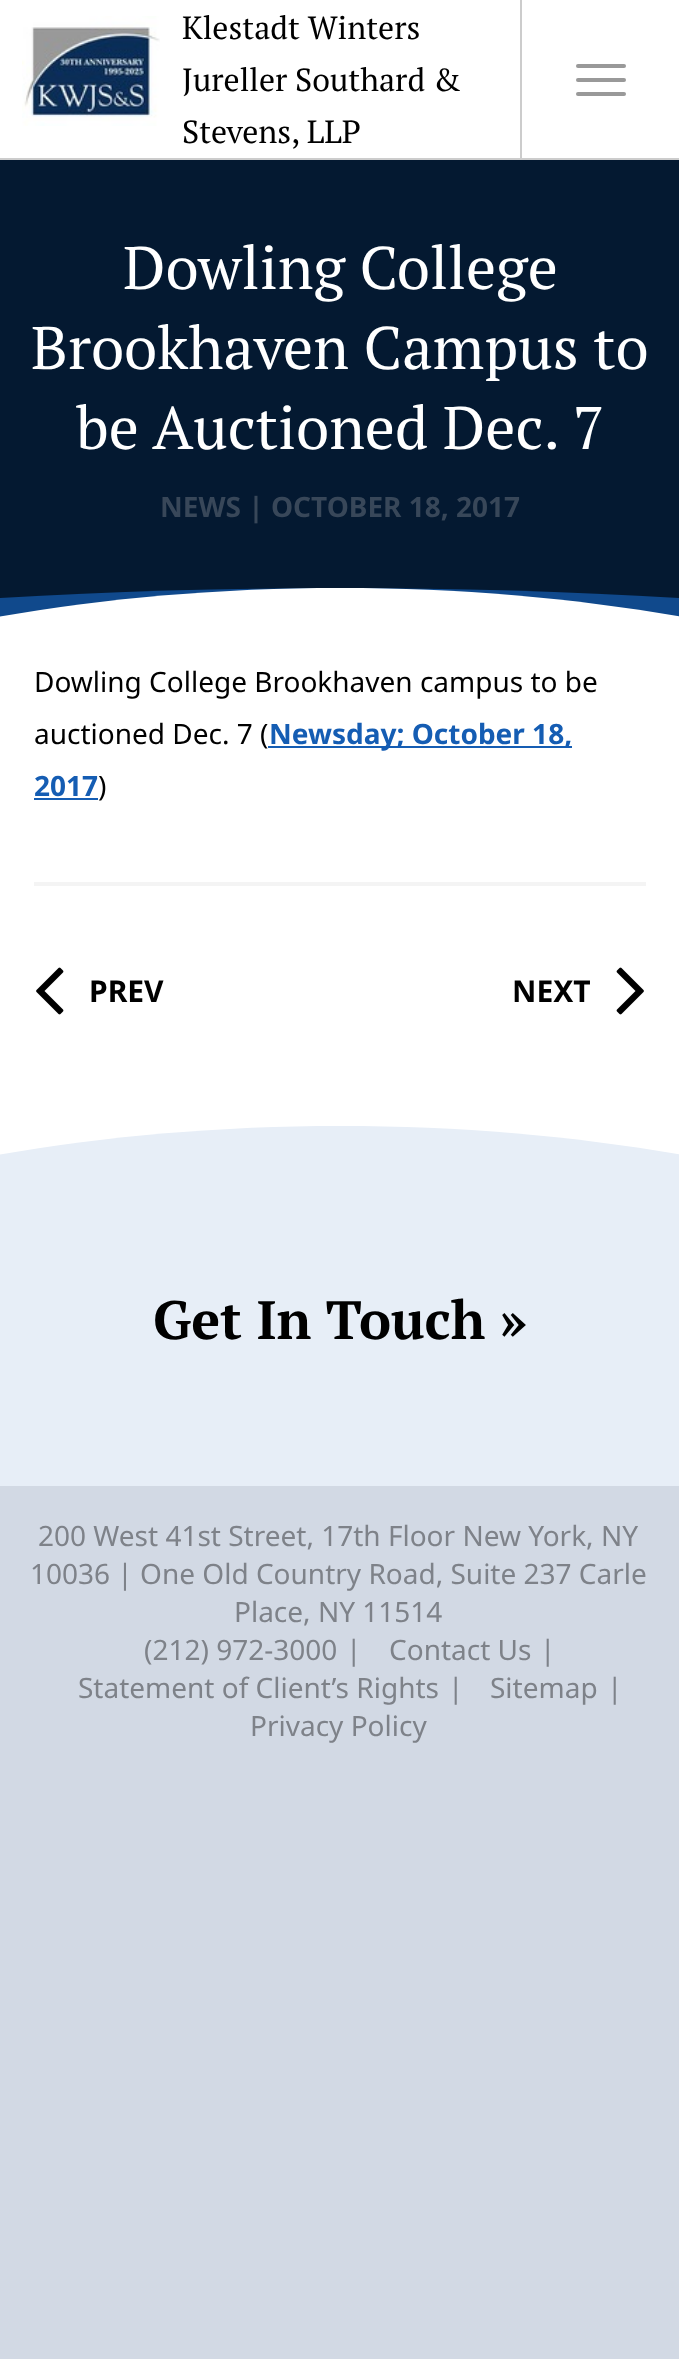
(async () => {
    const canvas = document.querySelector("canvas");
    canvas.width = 679;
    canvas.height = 2359;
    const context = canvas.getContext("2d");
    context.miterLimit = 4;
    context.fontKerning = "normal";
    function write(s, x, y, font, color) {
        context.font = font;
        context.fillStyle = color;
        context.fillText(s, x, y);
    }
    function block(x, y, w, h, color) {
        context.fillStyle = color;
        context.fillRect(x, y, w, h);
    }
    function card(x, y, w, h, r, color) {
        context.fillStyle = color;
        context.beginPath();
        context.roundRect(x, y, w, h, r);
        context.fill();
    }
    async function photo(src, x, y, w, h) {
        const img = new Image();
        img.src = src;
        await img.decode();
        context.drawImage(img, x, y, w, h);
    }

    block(0, 0, 679, 2359, "rgb(210, 217, 228)");
    block(0, 0, 679, 1155, "rgb(255, 255, 255)");
    block(0, 158, 679, 2, "rgb(204, 204, 204)");
    await photo("media/1.png", 22, 16, 138, 110);
    write("Klestadt Winters", 182, 39, "32px PT Serif", "rgb(0, 0, 0)");
    write("Jureller Southard &", 182, 91, "32px PT Serif", "rgb(0, 0, 0)");
    write("Stevens, LLP", 182, 143, "32px PT Serif", "rgb(0, 0, 0)");
    block(520, 0, 2, 160, "rgb(204, 204, 204)");
    card(576, 64, 50, 4, 2, "rgb(153, 153, 153)");
    card(576, 78, 50, 4, 2, "rgb(153, 153, 153)");
    card(576, 92, 50, 4, 2, "rgb(153, 153, 153)");
    block(0, 160, 679, 438, "rgb(4, 25, 49)");
    write("Dowling College", 123, 289, "60px PT Serif", "rgb(255, 255, 255)");
    write("Brookhaven Campus to", 31, 369, "60px PT Serif", "rgb(255, 255, 255)");
    write("be Auctioned Dec. 7", 76, 449, "60px PT Serif", "rgb(255, 255, 255)");
    write("NEWS | OCTOBER 18, 2017", 160, 517, "bold 28px Noto Sans", "rgb(56, 71, 89)");
    context.save();
    context.beginPath();
    context.rect(0, 160, 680, 468);
    context.clip();
    context.fillStyle = "rgb(16, 73, 140)";
    context.beginPath();
    context.moveTo(340, 588);
    context.bezierCurveTo(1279, 588, 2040, 812, 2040, 1088);
    context.lineTo(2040, 1588);
    context.lineTo(-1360, 1588);
    context.lineTo(-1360, 1088);
    context.bezierCurveTo(-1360, 812, -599, 588, 340, 588);
    context.closePath();
    context.fill();
    context.fillStyle = "rgb(255, 255, 255)";
    context.beginPath();
    context.moveTo(340, 588);
    context.bezierCurveTo(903, 588, 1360, 812, 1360, 1088);
    context.lineTo(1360, 1588);
    context.lineTo(-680, 1588);
    context.lineTo(-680, 1088);
    context.bezierCurveTo(-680, 812, -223, 588, 340, 588);
    context.closePath();
    context.fill();
    context.restore();
    write("Dowling College Brookhaven campus to be", 34, 692, "28px Noto Sans", "rgb(0, 0, 0)");
    write("auctioned Dec. 7 (", 34, 744, "28px Noto Sans", "rgb(0, 0, 0)");
    block(268, 746, 304, 2, "rgb(21, 93, 179)");
    write("Newsday; October 18,", 269, 744, "bold 28px Noto Sans", "rgb(21, 93, 179)");
    write("2017", 34, 796, "bold 28px Noto Sans", "rgb(21, 93, 179)");
    block(34, 798, 64, 2, "rgb(21, 93, 179)");
    write(")", 98, 796, "28px Noto Sans", "rgb(0, 0, 0)");
    block(34, 882, 612, 4, "rgb(244, 244, 244)");
    await photo("media/2.png", 36, 967, 28, 48);
    write("PREV", 89, 1002, "bold 30px Noto Sans", "rgb(0, 0, 0)");
    write("NEXT", 512, 1002, "bold 30px Noto Sans", "rgb(0, 0, 0)");
    await photo("media/3.png", 616, 967, 28, 48);
    context.save();
    context.beginPath();
    context.rect(0, 1126, 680, 360);
    context.clip();
    context.fillStyle = "rgb(231, 238, 247)";
    context.beginPath();
    context.moveTo(340, 1126);
    context.bezierCurveTo(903, 1126, 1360, 1350, 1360, 1626);
    context.lineTo(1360, 2126);
    context.lineTo(-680, 2126);
    context.lineTo(-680, 1626);
    context.bezierCurveTo(-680, 1350, -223, 1126, 340, 1126);
    context.closePath();
    context.fill();
    context.restore();
    write("Get In Touch »", 153, 1339, "bold 54px PT Serif", "rgb(0, 0, 0)");
    write("200 West 41st Street, 17th Floor New York, NY", 38, 1546, "28px Noto Sans", "rgb(126, 130, 137)");
    write("10036 | One Old Country Road, Suite 237 Carle", 30, 1584, "28px Noto Sans", "rgb(126, 130, 137)");
    write("Place, NY 11514", 234, 1622, "28px Noto Sans", "rgb(126, 130, 137)");
    write("Contact Us", 389, 1660, "28px Noto Sans", "rgb(126, 130, 137)");
    write("|", 540, 1660, "28px Noto Sans", "rgb(126, 130, 137)");
    write("Statement of Client’s Rights", 78, 1698, "28px Noto Sans", "rgb(126, 130, 137)");
    write("|", 448, 1698, "28px Noto Sans", "rgb(126, 130, 137)");
    write("Sitemap", 490, 1698, "28px Noto Sans", "rgb(126, 130, 137)");
    write("|", 607, 1698, "28px Noto Sans", "rgb(126, 130, 137)");
    write("Privacy Policy", 250, 1736, "28px Noto Sans", "rgb(126, 130, 137)");
    write("(212) 972-3000", 144, 1660, "28px Noto Sans", "rgb(126, 130, 137)");
    write("|", 346, 1660, "28px Noto Sans", "rgb(126, 130, 137)");
})();
